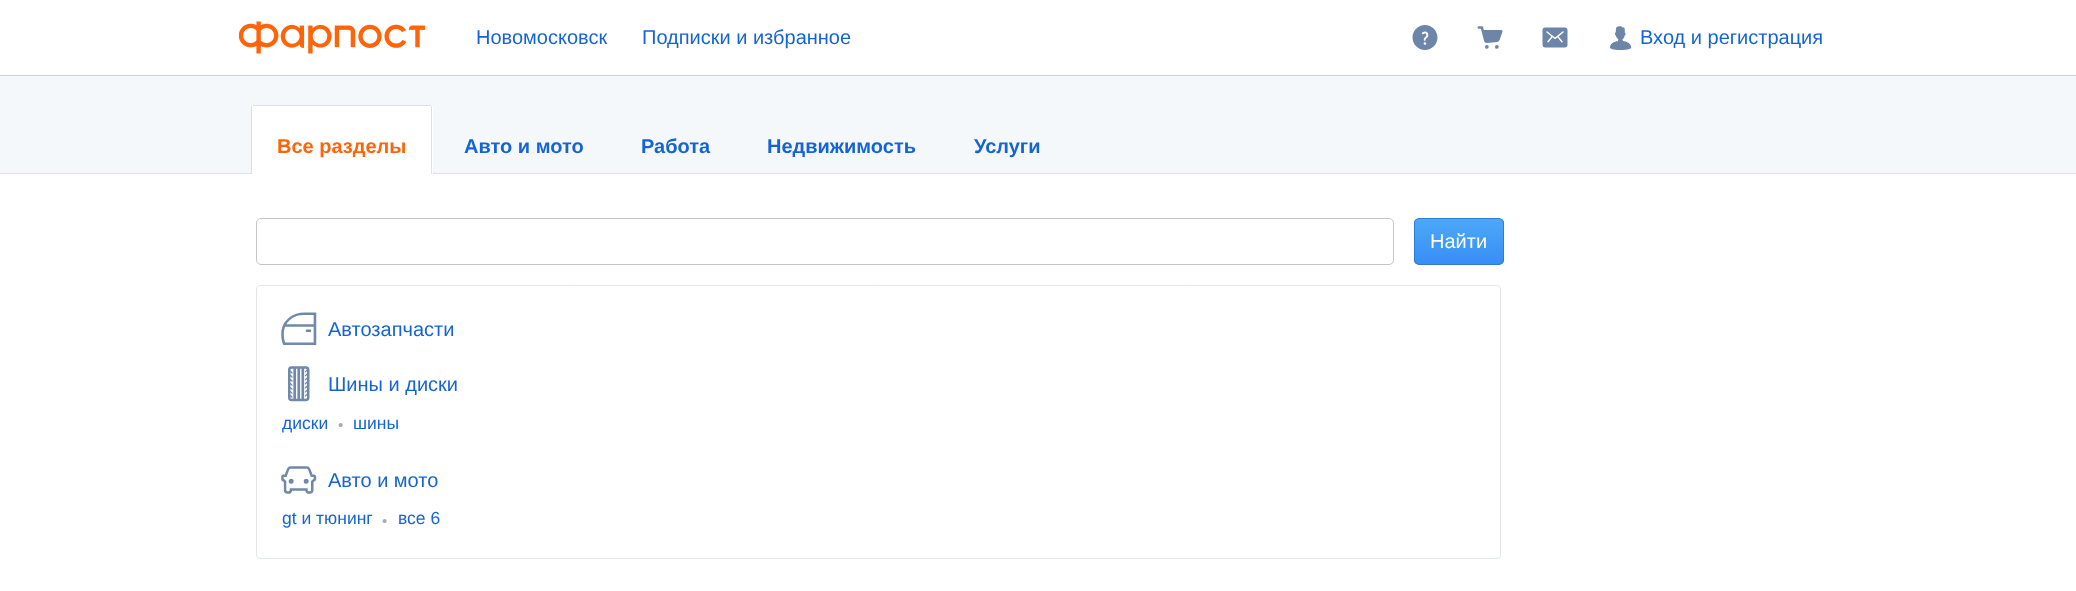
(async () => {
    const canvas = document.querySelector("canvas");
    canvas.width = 2076;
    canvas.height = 591;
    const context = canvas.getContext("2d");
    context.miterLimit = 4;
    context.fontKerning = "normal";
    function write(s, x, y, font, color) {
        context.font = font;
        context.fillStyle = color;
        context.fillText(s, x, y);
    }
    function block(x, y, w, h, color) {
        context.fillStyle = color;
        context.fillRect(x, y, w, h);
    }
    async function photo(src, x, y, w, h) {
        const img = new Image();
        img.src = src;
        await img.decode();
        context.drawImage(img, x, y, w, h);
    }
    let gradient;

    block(0, 0, 2076, 591, "rgb(255, 255, 255)");
    block(0, 75, 2076, 1, "rgb(208, 209, 216)");
    await photo("media/1.png", 239, 21, 186, 33);
    write("Новомосковск", 476, 44, "20px Liberation Sans", "rgb(21, 100, 212)");
    write("Подписки и избранное", 642, 44, "20px Liberation Sans", "rgb(21, 100, 212)");
    await photo("media/2.png", 1412, 25, 26, 25);
    await photo("media/3.png", 1477, 26, 26, 23);
    await photo("media/4.png", 1542, 27, 26, 21);
    await photo("media/5.png", 1610, 26, 22, 24);
    write("Вход и регистрация", 1640, 44, "20px Liberation Sans", "rgb(21, 100, 212)");
    block(0, 76, 2076, 97, "rgb(245, 248, 250)");
    block(0, 173, 2076, 1, "rgb(221, 224, 228)");
    context.fillStyle = "rgb(255, 255, 255)";
    context.beginPath();
    context.roundRect(251, 105, 182, 69, [2.5, 2.5, 0, 0]);
    context.fill();
    block(253, 105, 178, 1, "rgb(221, 224, 228)");
    block(431, 106, 1, 68, "rgb(221, 224, 228)");
    block(251, 106, 1, 68, "rgb(221, 224, 228)");
    write("Все разделы", 277, 153, "bold 20px Liberation Sans", "rgb(255, 100, 8)");
    write("Авто и мото", 464, 153, "bold 20px Liberation Sans", "rgb(21, 100, 212)");
    write("Работа", 641, 153, "bold 20px Liberation Sans", "rgb(21, 100, 212)");
    write("Недвижимость", 767, 153, "bold 20px Liberation Sans", "rgb(21, 100, 212)");
    write("Услуги", 974, 153, "bold 20px Liberation Sans", "rgb(21, 100, 212)");
    context.beginPath();
    context.roundRect(256.5, 218.5, 1137, 46, 4.5);
    context.strokeStyle = "rgb(198, 198, 198)";
    context.stroke();
    context.save();
    context.beginPath();
    context.roundRect(1414, 218, 90, 47, 5);
    context.clip();
    gradient = context.createLinearGradient(1459, 219, 1459, 264);
    gradient.addColorStop(0, "rgb(75, 169, 247)");
    gradient.addColorStop(1, "rgb(56, 141, 245)");
    context.fillStyle = gradient;
    context.fillRect(1414, 219, 90, 45);
    context.restore();
    context.beginPath();
    context.roundRect(1414.5, 218.5, 89, 46, 4.5);
    context.strokeStyle = "rgb(44, 125, 210)";
    context.stroke();
    write("Найти", 1430, 248, "20px Liberation Sans", "rgb(255, 255, 255)");
    context.beginPath();
    context.roundRect(256.5, 285.5, 1244, 273, 3.5);
    context.strokeStyle = "rgb(228, 231, 234)";
    context.stroke();
    await photo("media/6.png", 281, 312, 36, 33);
    write("Автозапчасти", 328, 336, "20px Liberation Sans", "rgb(21, 100, 212)");
    await photo("media/7.png", 288, 366, 22, 36);
    write("Шины и диски", 328, 391, "20px Liberation Sans", "rgb(21, 100, 212)");
    write("диски", 282, 429, "17.5px Liberation Sans", "rgb(21, 100, 212)");
    write("•", 338, 430, "15px Liberation Sans", "rgb(172, 172, 172)");
    write("шины", 353, 429, "17.5px Liberation Sans", "rgb(21, 100, 212)");
    await photo("media/8.png", 281, 466, 36, 28);
    write("Авто и мото", 328, 487, "20px Liberation Sans", "rgb(21, 100, 212)");
    write("gt и тюнинг", 282, 524, "17.5px Liberation Sans", "rgb(21, 100, 212)");
    write("•", 382, 526, "15px Liberation Sans", "rgb(172, 172, 172)");
    write("все 6", 398, 524, "17.5px Liberation Sans", "rgb(21, 100, 212)");
})();
